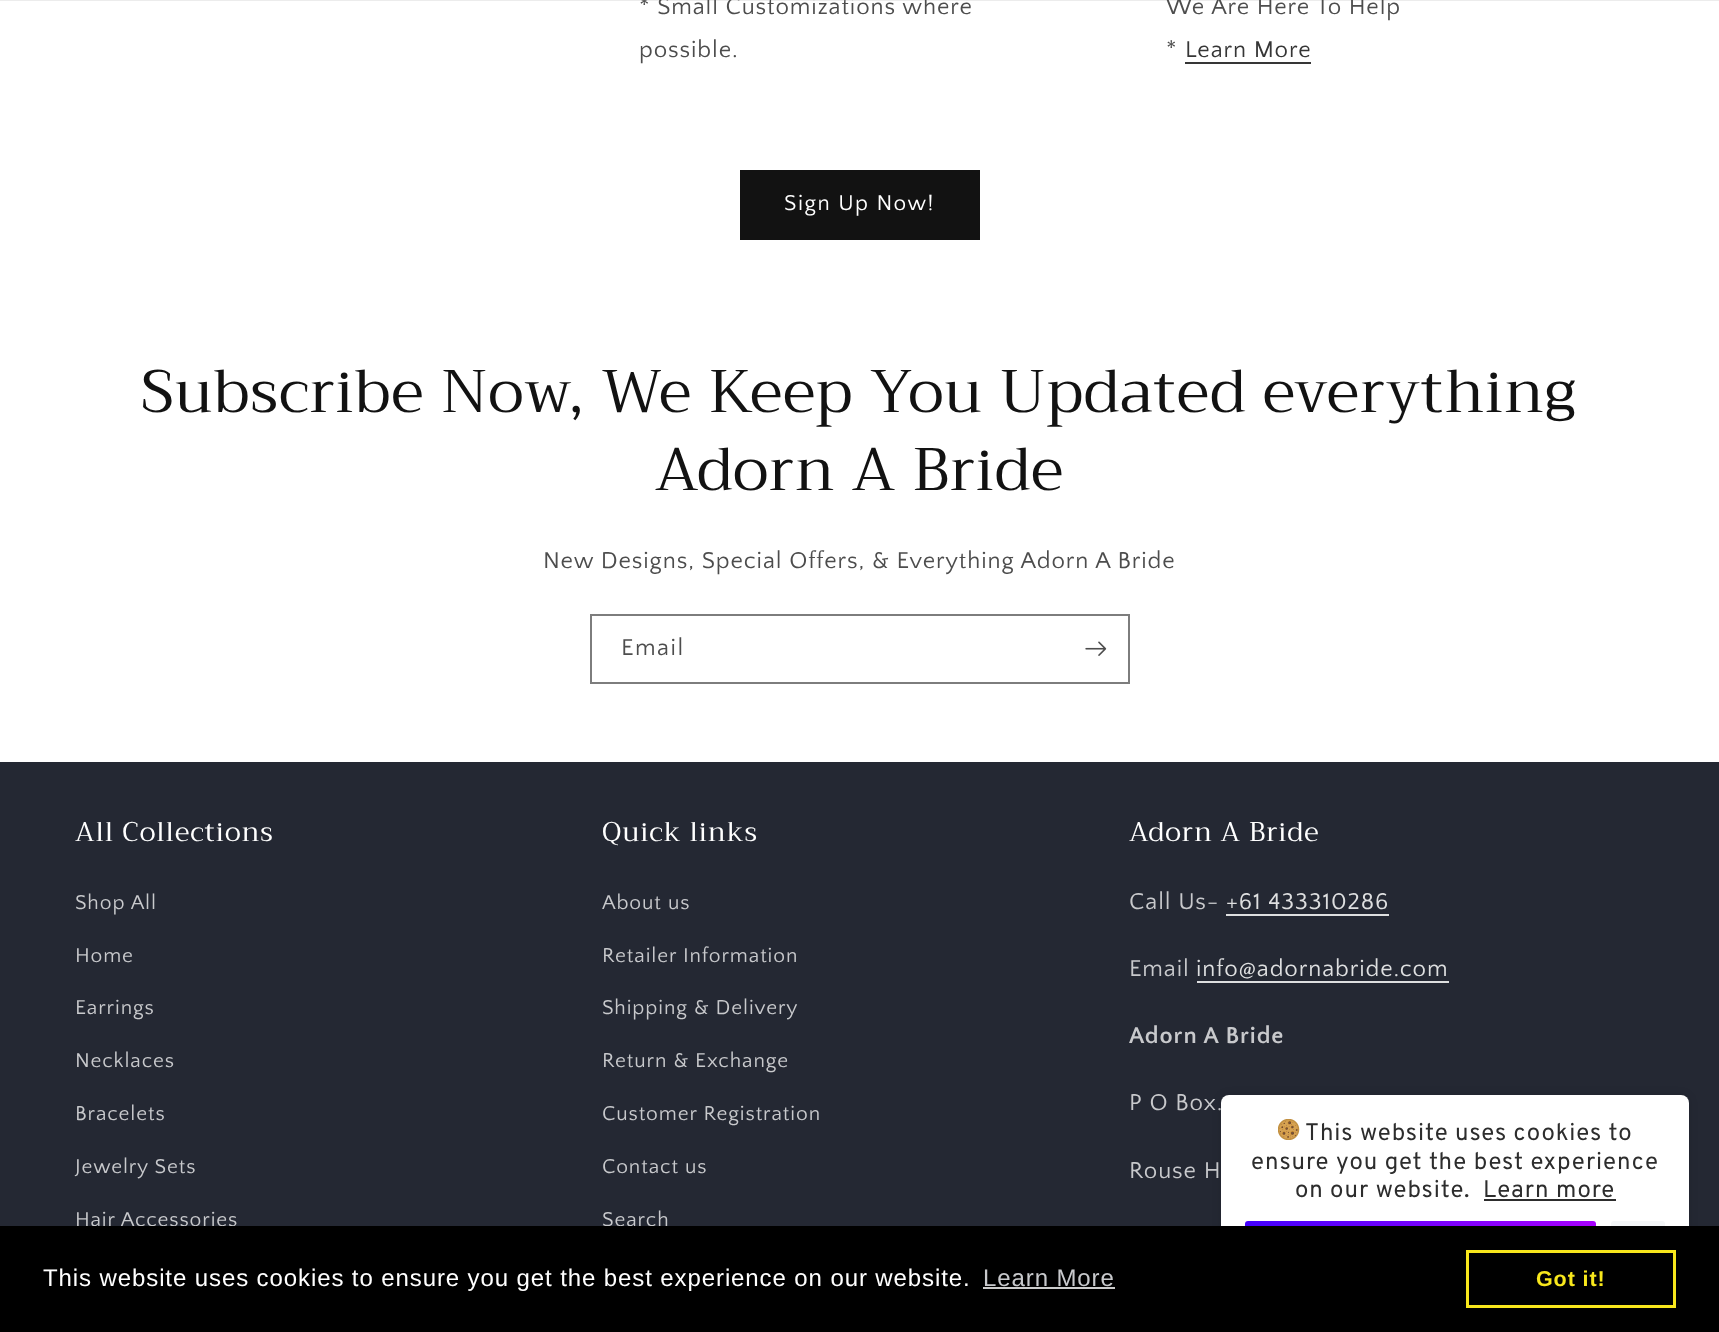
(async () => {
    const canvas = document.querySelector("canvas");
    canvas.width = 1719;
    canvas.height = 1332;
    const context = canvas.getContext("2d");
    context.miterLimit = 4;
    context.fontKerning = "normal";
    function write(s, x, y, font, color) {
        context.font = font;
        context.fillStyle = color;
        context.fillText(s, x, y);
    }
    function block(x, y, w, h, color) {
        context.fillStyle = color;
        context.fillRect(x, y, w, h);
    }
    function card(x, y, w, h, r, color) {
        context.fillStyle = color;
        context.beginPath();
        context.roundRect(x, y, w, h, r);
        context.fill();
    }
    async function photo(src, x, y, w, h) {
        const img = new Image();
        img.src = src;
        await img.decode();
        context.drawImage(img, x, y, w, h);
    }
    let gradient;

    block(0, 0, 1719, 1332, "rgb(255, 255, 255)");
    block(0, 0, 1719, 1, "rgba(18, 18, 18, 0.08)");
    context.letterSpacing = "0.9px";
    write("* Small Customizations where", 639, 14, "24px Quattrocento Sans", "rgb(77, 77, 77)");
    write("possible.", 639, 57, "24px Quattrocento Sans", "rgb(77, 77, 77)");
    write("We Are Here To Help", 1166, 14, "24px Quattrocento Sans", "rgb(77, 77, 77)");
    write("*", 1166, 57, "24px Quattrocento Sans", "rgb(77, 77, 77)");
    write("Learn More", 1185, 57, "24px Quattrocento Sans", "rgb(54, 54, 54)");
    block(1185, 62, 126, 2, "rgb(54, 54, 54)");
    block(740, 170, 240, 70, "rgb(18, 18, 18)");
    context.letterSpacing = "1.5px";
    write("Sign Up Now!", 784, 210, "22.5px Quattrocento Sans", "rgb(255, 255, 255)");
    context.letterSpacing = "0.9px";
    write("Subscribe Now, We Keep You Updated everything", 141, 412, "60px Trirong", "rgb(18, 18, 18)");
    write("Adorn A Bride", 655, 490, "60px Trirong", "rgb(18, 18, 18)");
    write("New Designs, Special Offers, & Everything Adorn A Bride", 543, 568, "24px Quattrocento Sans", "rgb(77, 77, 77)");
    context.strokeStyle = "rgb(125, 125, 125)";
    context.lineWidth = 2;
    context.strokeRect(591, 615, 538, 68);
    context.letterSpacing = "1.5px";
    write("Email", 621, 655, "24px Quattrocento Sans", "rgb(77, 77, 77)");
    await photo("media/1.png", 1085, 641, 22, 15);
    block(0, 762, 1719, 464, "rgb(36, 40, 51)");
    context.letterSpacing = "0.9px";
    write("All Collections", 75, 841, "27px Trirong", "rgb(255, 255, 255)");
    write("Shop All", 75, 909, "21px Quattrocento Sans", "rgb(200, 201, 204)");
    write("Home", 75, 962, "21px Quattrocento Sans", "rgb(200, 201, 204)");
    write("Earrings", 75, 1014, "21px Quattrocento Sans", "rgb(200, 201, 204)");
    write("Necklaces", 75, 1067, "21px Quattrocento Sans", "rgb(200, 201, 204)");
    write("Bracelets", 75, 1120, "21px Quattrocento Sans", "rgb(200, 201, 204)");
    write("Jewelry Sets", 75, 1173, "21px Quattrocento Sans", "rgb(200, 201, 204)");
    write("Hair Accessories", 75, 1226, "21px Quattrocento Sans", "rgb(200, 201, 204)");
    write("Quick links", 602, 841, "27px Trirong", "rgb(255, 255, 255)");
    write("About us", 602, 909, "21px Quattrocento Sans", "rgb(200, 201, 204)");
    write("Retailer Information", 602, 962, "21px Quattrocento Sans", "rgb(200, 201, 204)");
    write("Shipping & Delivery", 602, 1014, "21px Quattrocento Sans", "rgb(200, 201, 204)");
    write("Return & Exchange", 602, 1067, "21px Quattrocento Sans", "rgb(200, 201, 204)");
    write("Customer Registration", 602, 1120, "21px Quattrocento Sans", "rgb(200, 201, 204)");
    write("Contact us", 602, 1173, "21px Quattrocento Sans", "rgb(200, 201, 204)");
    write("Search", 602, 1226, "21px Quattrocento Sans", "rgb(200, 201, 204)");
    write("Adorn A Bride", 1129, 841, "27px Trirong", "rgb(255, 255, 255)");
    write("Call Us-", 1129, 909, "24px Quattrocento Sans", "rgb(200, 201, 204)");
    write("+61 433310286", 1226, 909, "24px Quattrocento Sans", "rgb(222, 223, 224)");
    block(1226, 914, 163, 2, "rgb(222, 223, 224)");
    write("Email", 1129, 976, "24px Quattrocento Sans", "rgb(200, 201, 204)");
    write("info@adornabride.com", 1196, 976, "24px Quattrocento Sans", "rgb(222, 223, 224)");
    block(1197, 981, 252, 2, "rgb(222, 223, 224)");
    write("Adorn A Bride", 1129, 1043, "bold 24px Quattrocento Sans", "rgb(200, 201, 204)");
    write("P O Box.", 1129, 1110, "24px Quattrocento Sans", "rgb(200, 201, 204)");
    write("Rouse H", 1129, 1178, "24px Quattrocento Sans", "rgb(200, 201, 204)");
    card(1221, 1095, 468, 207, 8, "rgb(255, 255, 255)");
    context.save();
    context.beginPath();
    context.moveTo(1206, 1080);
    context.lineTo(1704, 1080);
    context.lineTo(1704, 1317);
    context.lineTo(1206, 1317);
    context.closePath();
    context.moveTo(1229, 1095);
    context.lineTo(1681, 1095);
    context.bezierCurveTo(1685.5, 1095, 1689, 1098.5, 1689, 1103);
    context.lineTo(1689, 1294);
    context.bezierCurveTo(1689, 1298.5, 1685.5, 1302, 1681, 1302);
    context.lineTo(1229, 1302);
    context.bezierCurveTo(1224.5, 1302, 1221, 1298.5, 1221, 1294);
    context.lineTo(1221, 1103);
    context.bezierCurveTo(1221, 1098.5, 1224.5, 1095, 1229, 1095);
    context.closePath();
    context.clip("evenodd");
    context.fillStyle = "rgba(0, 0, 0, 0.12)";
    context.filter = "blur(4.5px)";
    context.beginPath();
    context.roundRect(1221, 1095, 468, 207, 8);
    context.fill();
    context.filter = "none";
    context.restore();
    await photo("media/2.png", 1278, 1119, 22, 21);
    write("This website uses cookies to", 1305, 1140, "24px Overpass", "rgb(45, 45, 45)");
    write("ensure you get the best experience", 1251, 1169, "24px Overpass", "rgb(45, 45, 45)");
    write("on our website.", 1295, 1197, "24px Overpass", "rgb(45, 45, 45)");
    write("Learn more", 1483, 1197, "24px Overpass", "rgb(45, 45, 45)");
    block(1484, 1199, 132, 2, "rgb(45, 45, 45)");
    gradient = context.createLinearGradient(1245, 1250, 1596, 1250);
    gradient.addColorStop(0, "rgb(68, 1, 255)");
    gradient.addColorStop(1, "rgb(169, 1, 255)");
    context.fillStyle = gradient;
    context.beginPath();
    context.roundRect(1245, 1221, 351, 57, 3);
    context.fill();
    card(1611, 1221, 54, 57, 3, "rgb(244, 246, 248)");
    block(0, 1226, 1719, 106, "rgb(0, 0, 0)");
    write("This website uses cookies to ensure you get the best experience on our website.", 43, 1286, "24px Liberation Sans", "rgb(255, 255, 255)");
    write("Learn More", 983, 1286, "24px Liberation Sans", "rgb(200, 201, 204)");
    block(983, 1287, 132, 2, "rgb(204, 204, 204)");
    context.strokeStyle = "rgb(248, 231, 28)";
    context.lineWidth = 3;
    context.strokeRect(1467.5, 1251.5, 207, 55);
    write("Got it!", 1536, 1286, "bold 21.5px Liberation Sans", "rgb(248, 231, 28)");
})();
